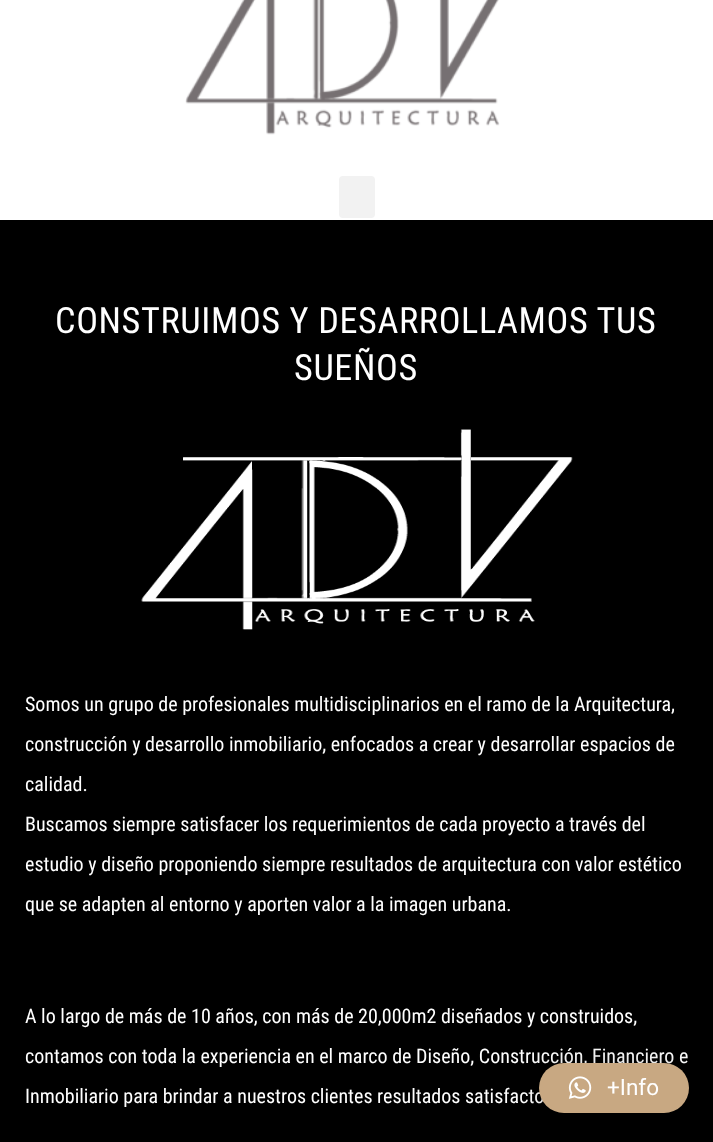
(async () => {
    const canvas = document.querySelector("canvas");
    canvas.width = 713;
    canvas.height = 1142;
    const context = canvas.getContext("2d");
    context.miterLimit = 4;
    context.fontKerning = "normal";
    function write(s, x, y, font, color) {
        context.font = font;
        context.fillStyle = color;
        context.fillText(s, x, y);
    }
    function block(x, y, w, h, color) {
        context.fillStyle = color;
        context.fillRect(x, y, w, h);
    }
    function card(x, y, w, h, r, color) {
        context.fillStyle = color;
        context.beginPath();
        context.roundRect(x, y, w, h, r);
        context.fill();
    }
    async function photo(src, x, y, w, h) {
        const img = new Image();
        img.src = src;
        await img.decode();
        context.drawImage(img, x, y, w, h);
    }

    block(0, 0, 713, 1142, "rgb(255, 255, 255)");
    await photo("media/1.png", 185, 0, 315, 135);
    card(339, 176, 36, 42, 4, "rgb(242, 242, 242)");
    block(0, 220, 713, 922, "rgb(0, 0, 0)");
    context.letterSpacing = "0.6px";
    write("CONSTRUIMOS Y DESARROLLAMOS TUS", 55, 333, "36.25px Roboto Condensed", "rgb(255, 255, 255)");
    write("SUEÑOS", 294, 380, "36.25px Roboto Condensed", "rgb(255, 255, 255)");
    await photo("media/2.png", 141, 429, 432, 201);
    context.letterSpacing = "0px";
    write("Somos un grupo de profesionales multidisciplinarios en el ramo de la Arquitectura,", 25, 711, "20px Roboto Condensed", "rgb(255, 255, 255)");
    write("construcción y desarrollo inmobiliario, enfocados a crear y desarrollar espacios de", 25, 751, "20px Roboto Condensed", "rgb(255, 255, 255)");
    write("calidad.", 25, 791, "20px Roboto Condensed", "rgb(255, 255, 255)");
    write("Buscamos siempre satisfacer los requerimientos de cada proyecto a través del", 25, 831, "20px Roboto Condensed", "rgb(255, 255, 255)");
    write("estudio y diseño proponiendo siempre resultados de arquitectura con valor estético", 25, 871, "20px Roboto Condensed", "rgb(255, 255, 255)");
    write("que se adapten al entorno y aporten valor a la imagen urbana.", 25, 911, "20px Roboto Condensed", "rgb(255, 255, 255)");
    write("A lo largo de más de 10 años, con más de 20,000m2 diseñados y construidos,", 25, 1023, "20px Roboto Condensed", "rgb(255, 255, 255)");
    write("contamos con toda la experiencia en el marco de Diseño, Construcción, Financiero e", 25, 1063, "20px Roboto Condensed", "rgb(255, 255, 255)");
    write("Inmobiliario para brindar a nuestros clientes resultados satisfacto", 25, 1103, "20px Roboto Condensed", "rgb(255, 255, 255)");
    context.fillStyle = "rgba(0, 0, 0, 0.16)";
    context.filter = "blur(20px)";
    context.beginPath();
    context.roundRect(539, 1065, 150, 50, 25);
    context.fill();
    context.filter = "none";
    context.fillStyle = "rgba(0, 0, 0, 0.06)";
    context.filter = "blur(4px)";
    context.beginPath();
    context.roundRect(539, 1064, 150, 50, 25);
    context.fill();
    context.filter = "none";
    card(539, 1063, 150, 50, 25, "rgb(200, 168, 130)");
    await photo("media/3.png", 568, 1076, 24, 23);
    write("+Info", 607, 1095, "22.5px Roboto", "rgb(255, 255, 255)");
})();
